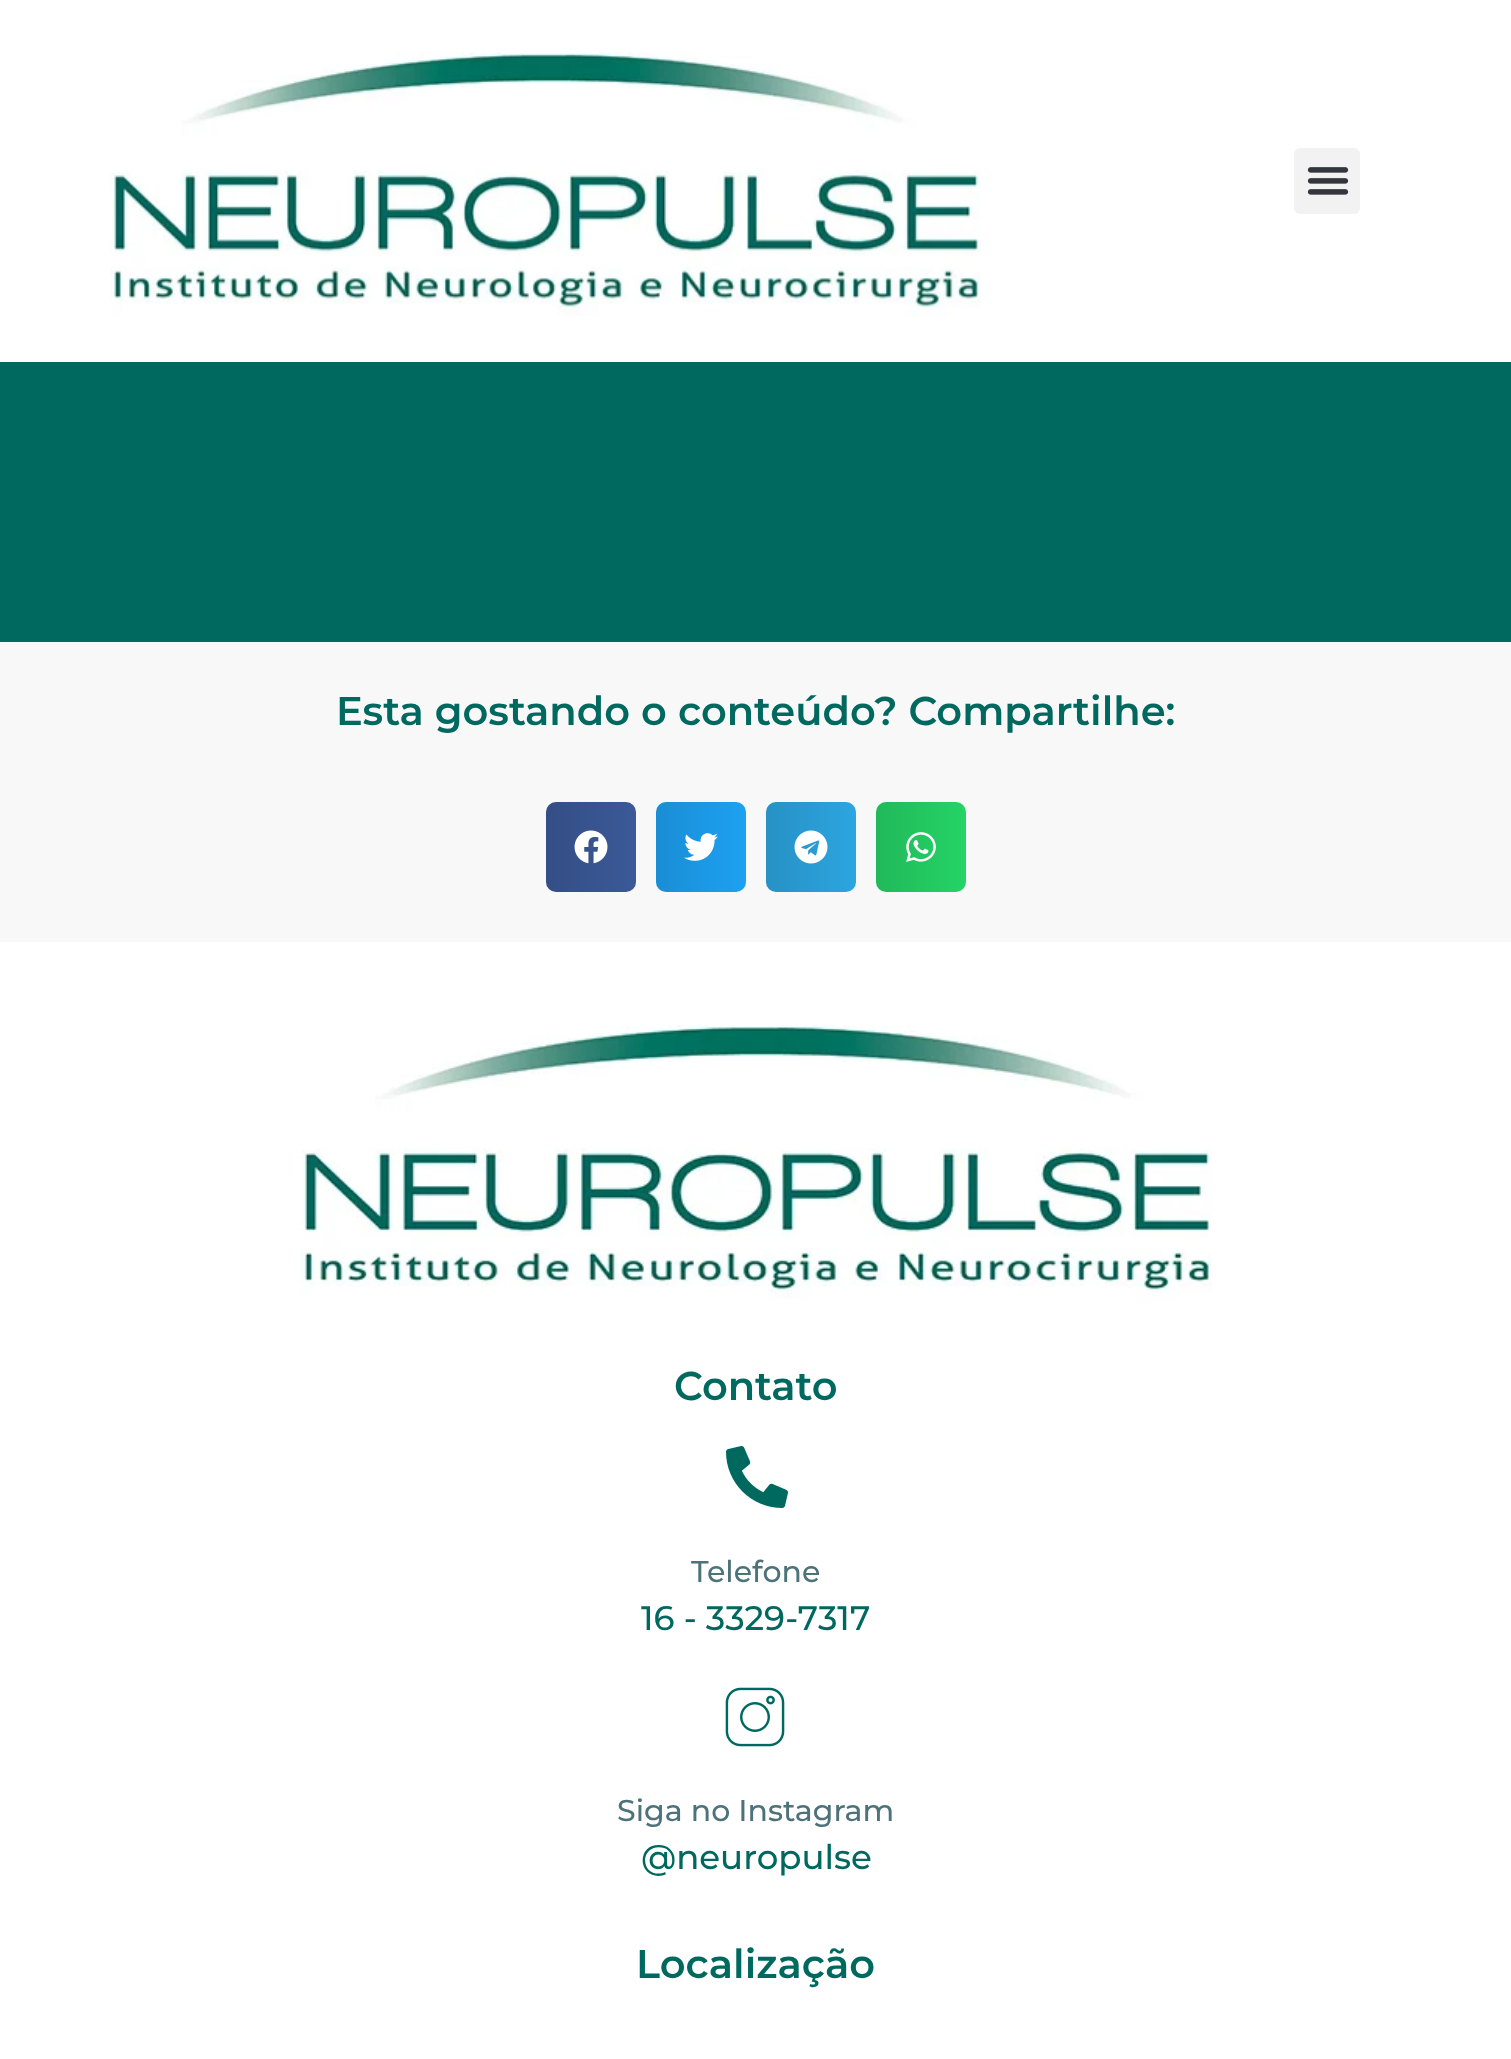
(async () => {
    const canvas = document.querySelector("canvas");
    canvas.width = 1511;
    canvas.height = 2059;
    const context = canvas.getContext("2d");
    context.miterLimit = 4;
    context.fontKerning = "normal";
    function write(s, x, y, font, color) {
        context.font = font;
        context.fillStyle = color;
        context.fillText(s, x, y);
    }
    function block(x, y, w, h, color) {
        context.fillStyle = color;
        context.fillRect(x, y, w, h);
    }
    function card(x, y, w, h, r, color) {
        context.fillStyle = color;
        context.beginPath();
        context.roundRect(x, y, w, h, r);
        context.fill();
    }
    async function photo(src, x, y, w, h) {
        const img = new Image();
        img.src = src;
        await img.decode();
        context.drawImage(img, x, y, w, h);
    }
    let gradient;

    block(0, 0, 1511, 2059, "rgb(255, 255, 255)");
    await photo("media/1.png", 110, 52, 871, 264);
    card(1294, 148, 66, 66, 6, "rgb(242, 242, 242)");
    await photo("media/2.png", 1307, 167, 42, 28);
    block(0, 362, 1511, 280, "rgb(0, 105, 95)");
    block(0, 642, 1511, 300, "rgb(248, 248, 248)");
    write("Esta gostando o conteúdo? Compartilhe:", 336, 725, "600 40px Montserrat", "rgb(0, 105, 95)");
    card(546, 802, 90, 90, 10, "rgb(59, 89, 152)");
    gradient = context.createLinearGradient(546, 847, 636, 847);
    gradient.addColorStop(0, "rgba(0, 0, 0, 0.12)");
    gradient.addColorStop(1, "rgba(0, 0, 0, 0)");
    context.fillStyle = gradient;
    context.beginPath();
    context.roundRect(546, 802, 90, 90, 10);
    context.fill();
    await photo("media/3.png", 574, 830, 34, 34);
    card(656, 802, 90, 90, 10, "rgb(29, 161, 242)");
    gradient = context.createLinearGradient(656, 847, 746, 847);
    gradient.addColorStop(0, "rgba(0, 0, 0, 0.12)");
    gradient.addColorStop(1, "rgba(0, 0, 0, 0)");
    context.fillStyle = gradient;
    context.beginPath();
    context.roundRect(656, 802, 90, 90, 10);
    context.fill();
    await photo("media/4.png", 684, 833, 34, 28);
    card(766, 802, 90, 90, 10, "rgb(44, 165, 224)");
    gradient = context.createLinearGradient(766, 847, 856, 847);
    gradient.addColorStop(0, "rgba(0, 0, 0, 0.12)");
    gradient.addColorStop(1, "rgba(0, 0, 0, 0)");
    context.fillStyle = gradient;
    context.beginPath();
    context.roundRect(766, 802, 90, 90, 10);
    context.fill();
    await photo("media/5.png", 794, 830, 34, 34);
    card(876, 802, 90, 90, 10, "rgb(37, 211, 102)");
    gradient = context.createLinearGradient(876, 847, 966, 847);
    gradient.addColorStop(0, "rgba(0, 0, 0, 0.12)");
    gradient.addColorStop(1, "rgba(0, 0, 0, 0)");
    context.fillStyle = gradient;
    context.beginPath();
    context.roundRect(876, 802, 90, 90, 10);
    context.fill();
    await photo("media/6.png", 906, 832, 30, 30);
    await photo("media/7.png", 300, 1025, 912, 274);
    write("Contato", 674, 1400, "600 40px Montserrat", "rgb(0, 105, 95)");
    await photo("media/8.png", 726, 1446, 62, 62);
    write("Telefone", 691, 1582, "500 30px Montserrat", "rgb(77, 114, 121)");
    write("16 - 3329-7317", 641, 1630, "500 34px Montserrat", "rgb(0, 105, 95)");
    await photo("media/9.png", 725, 1687, 60, 60);
    write("Siga no Instagram", 617, 1821, "500 30px Montserrat", "rgb(77, 114, 121)");
    write("@neuropulse", 641, 1869, "500 34px Montserrat", "rgb(0, 105, 95)");
    write("Localização", 636, 1978, "600 40px Montserrat", "rgb(0, 105, 95)");
})();
